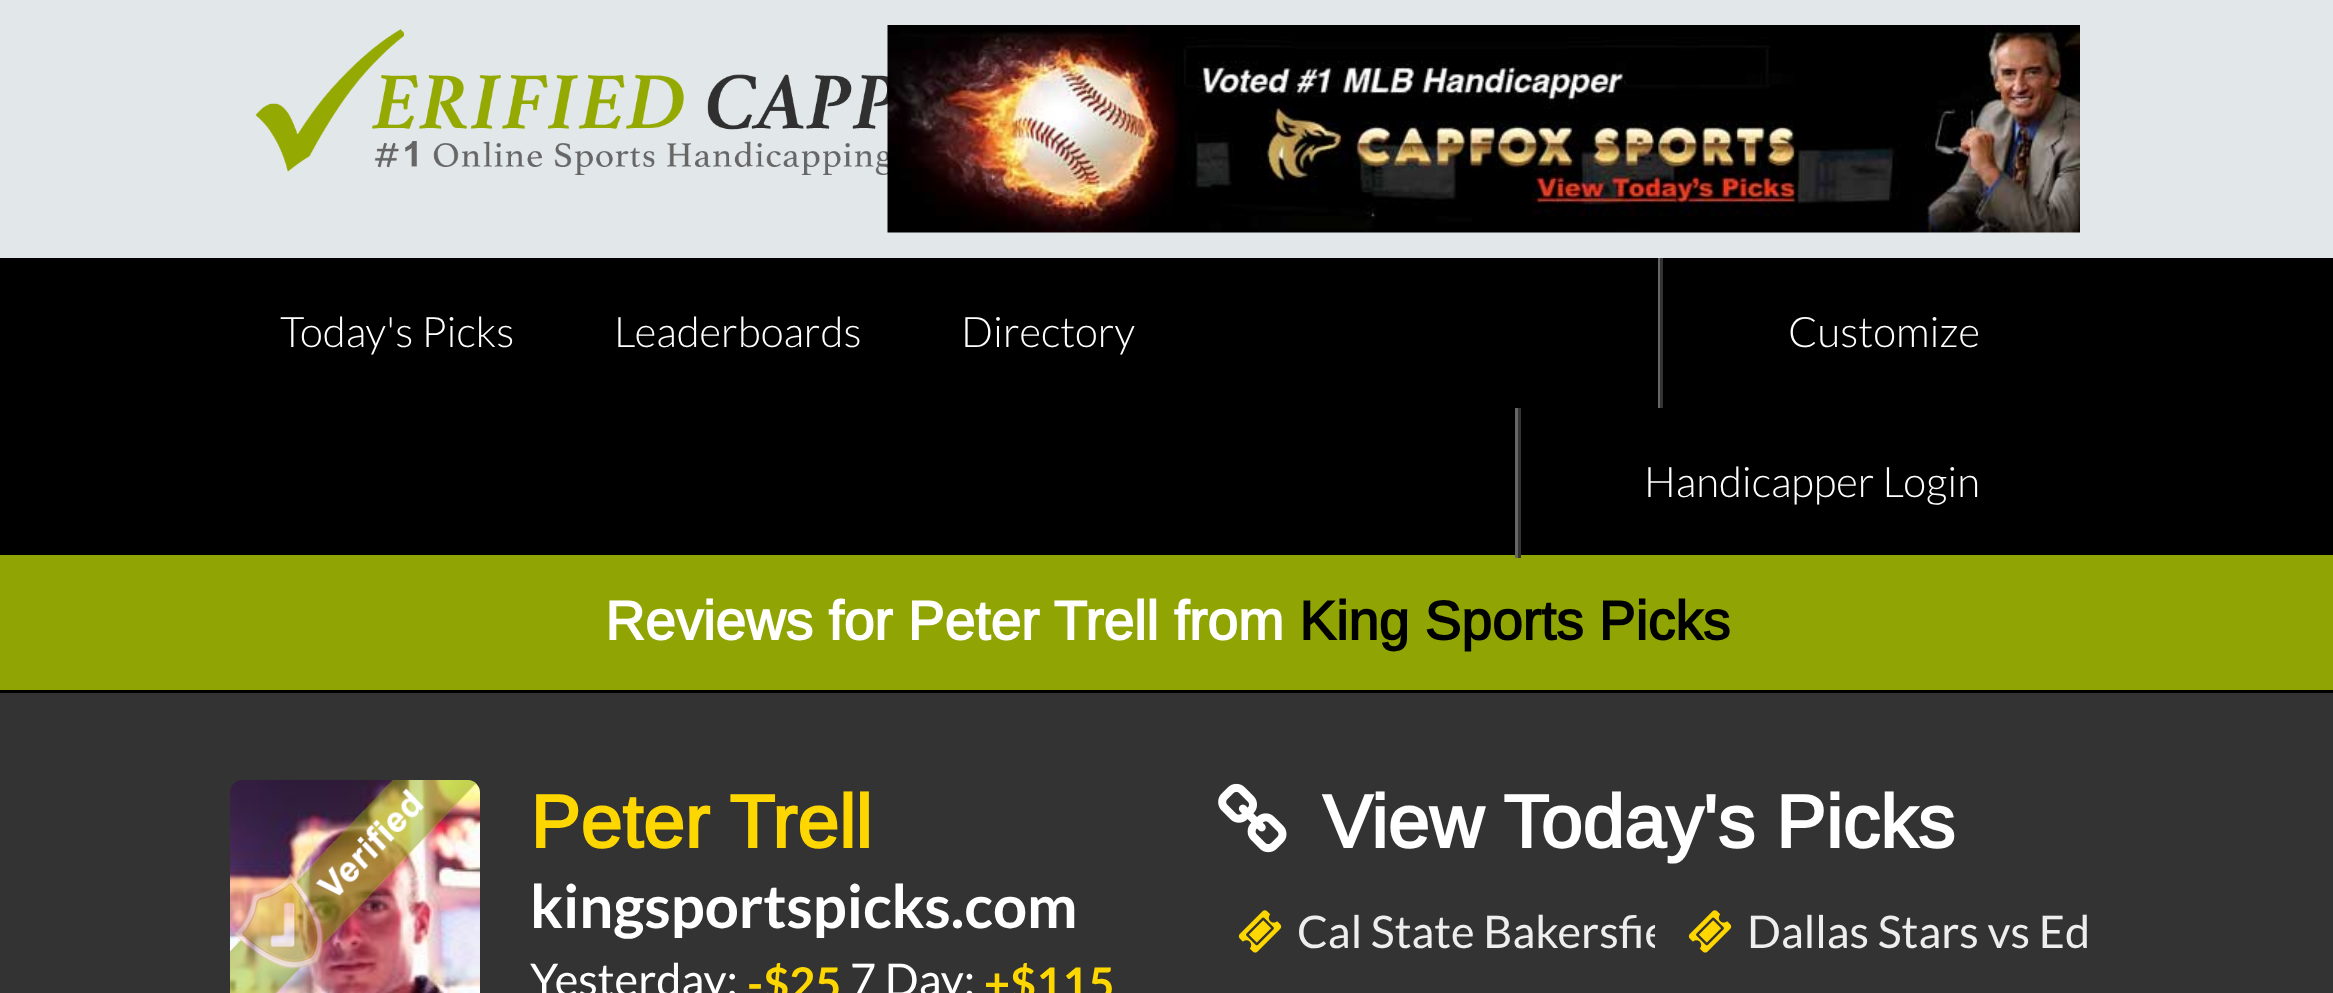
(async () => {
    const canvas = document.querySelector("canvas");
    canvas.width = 2333;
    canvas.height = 993;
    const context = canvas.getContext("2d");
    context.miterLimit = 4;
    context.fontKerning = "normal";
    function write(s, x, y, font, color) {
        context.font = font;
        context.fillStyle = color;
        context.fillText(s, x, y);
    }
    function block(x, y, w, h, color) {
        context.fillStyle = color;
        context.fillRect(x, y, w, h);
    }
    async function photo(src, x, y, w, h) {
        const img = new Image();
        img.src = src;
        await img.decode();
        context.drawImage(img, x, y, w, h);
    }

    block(0, 0, 2333, 993, "rgb(226, 232, 234)");
    await photo("media/1.png", 255, 29, 633, 146);
    await photo("media/2.png", 887, 25, 1193, 208);
    block(0, 258, 2333, 297, "rgb(0, 0, 0)");
    write("Today's Picks", 280, 347, "300 42px Lato", "rgb(255, 255, 255)");
    write("Leaderboards", 614, 347, "300 42px Lato", "rgb(255, 255, 255)");
    write("Directory", 961, 347, "300 42px Lato", "rgb(255, 255, 255)");
    block(1658, 258, 2, 150, "rgb(102, 102, 102)");
    block(1660, 258, 3, 150, "rgb(51, 51, 51)");
    write("Customize", 1788, 347, "300 42px Lato", "rgb(255, 255, 255)");
    block(0, 555, 2333, 135, "rgb(144, 165, 4)");
    block(1515, 408, 3, 150, "rgb(102, 102, 102)");
    block(1518, 408, 3, 150, "rgb(51, 51, 51)");
    write("Handicapper Login", 1644, 497, "300 42px Lato", "rgb(255, 255, 255)");
    block(0, 690, 2333, 3, "rgb(0, 0, 0)");
    write("Reviews for Peter Trell from", 605, 640, "bold 55px Arimo", "rgb(255, 255, 255)");
    write("King Sports Picks", 1299, 640, "bold 55px Arimo", "rgb(0, 0, 0)");
    block(0, 693, 2333, 300, "rgb(51, 51, 51)");
    await photo("media/3.png", 230, 780, 250, 213);
    await photo("media/4.png", 230, 780, 246, 213);
    write("Peter Trell", 530, 848, "bold 75px Arimo", "rgb(255, 215, 0)");
    write("kingsportspicks.com", 530, 928, "bold 60px Lato", "rgb(255, 255, 255)");
    write("Yesterday:", 530, 996, "45px Lato", "rgb(255, 255, 255)");
    write("-$25", 747, 1000, "bold 45px Lato", "rgb(255, 215, 0)");
    write("7 Day:", 850, 996, "45px Lato", "rgb(255, 255, 255)");
    write("+$115", 984, 1000, "bold 45px Lato", "rgb(255, 215, 0)");
    await photo("media/5.png", 1218, 783, 69, 70);
    write("View Today's Picks", 1322, 848, "bold 75px Arimo", "rgb(255, 255, 255)");
    await photo("media/6.png", 1238, 910, 44, 43);
    context.save();
    context.beginPath();
    context.rect(1205, 888, 450, 90);
    context.clip();
    write("Cal State Bakersfie", 1297, 948, "45px Lato", "rgb(238, 238, 238)");
    context.restore();
    await photo("media/6.png", 1688, 910, 44, 43);
    write("Dallas Stars vs Ed", 1747, 948, "45px Lato", "rgb(238, 238, 238)");
})();
